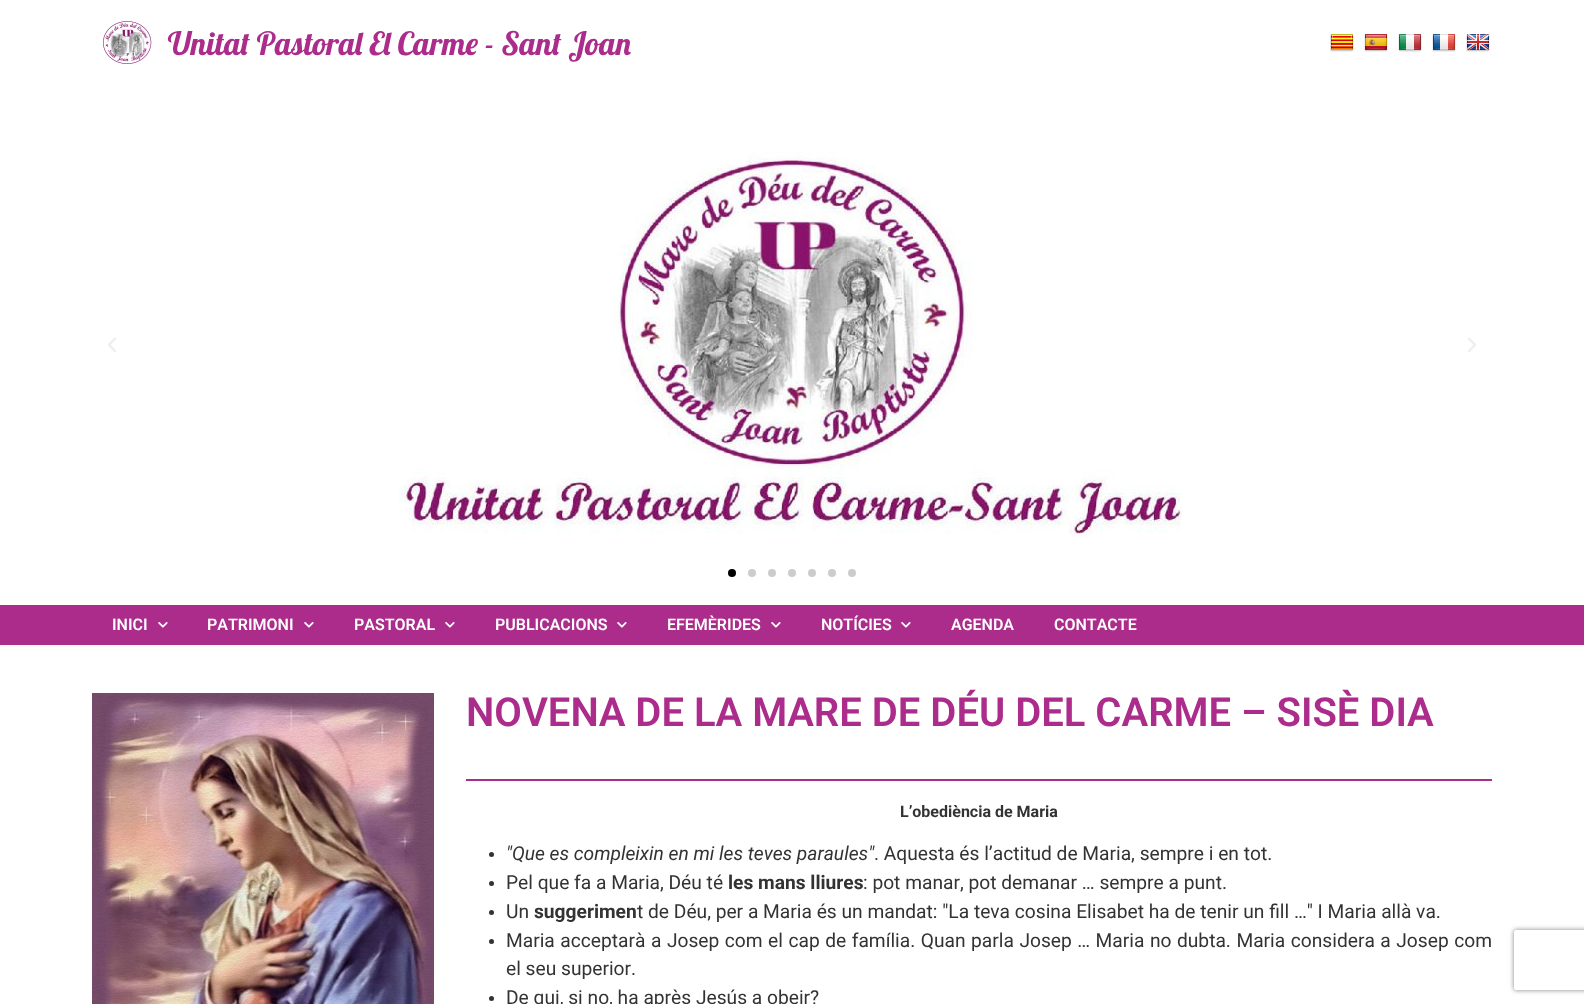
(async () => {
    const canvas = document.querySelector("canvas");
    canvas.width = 1584;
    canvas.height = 1004;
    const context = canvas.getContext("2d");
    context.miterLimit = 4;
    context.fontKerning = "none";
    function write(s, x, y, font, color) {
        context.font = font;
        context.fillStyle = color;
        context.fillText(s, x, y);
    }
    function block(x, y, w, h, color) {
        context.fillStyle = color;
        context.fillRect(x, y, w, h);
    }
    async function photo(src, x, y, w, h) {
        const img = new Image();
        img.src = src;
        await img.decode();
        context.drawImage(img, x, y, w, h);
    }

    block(0, 0, 1584, 1004, "rgb(255, 255, 255)");
    await photo("media/1.png", 103, 21, 49, 43);
    write("Unitat Pastoral El Carme - Sant Joan", 168, 55, "32px Lobster", "rgb(172, 44, 139)");
    await photo("media/2.png", 1330, 34, 24, 18);
    await photo("media/3.png", 1364, 34, 24, 18);
    await photo("media/4.png", 1398, 34, 24, 18);
    await photo("media/5.png", 1432, 34, 24, 18);
    await photo("media/6.png", 1466, 34, 24, 18);
    await photo("media/7.png", 108, 337, 8, 16);
    await photo("media/8.png", 397, 151, 785, 386);
    await photo("media/9.png", 1468, 337, 8, 16);
    context.fillStyle = "rgb(0, 0, 0)";
    context.beginPath();
    context.arc(732, 573, 4, 0, Math.PI * 2);
    context.fill();
    context.fillStyle = "rgb(204, 204, 204)";
    context.beginPath();
    context.arc(752, 573, 4, 0, Math.PI * 2);
    context.fill();
    context.beginPath();
    context.arc(772, 573, 4, 0, Math.PI * 2);
    context.fill();
    context.beginPath();
    context.arc(792, 573, 4, 0, Math.PI * 2);
    context.fill();
    context.beginPath();
    context.arc(812, 573, 4, 0, Math.PI * 2);
    context.fill();
    context.beginPath();
    context.arc(832, 573, 4, 0, Math.PI * 2);
    context.fill();
    context.beginPath();
    context.arc(852, 573, 4, 0, Math.PI * 2);
    context.fill();
    block(0, 605, 1584, 40, "rgb(172, 44, 139)");
    write("INICI", 112, 630, "600 16px Roboto", "rgb(255, 255, 255)");
    await photo("media/10.png", 158, 622, 10, 6);
    write("PATRIMONI", 207, 630, "600 16px Roboto", "rgb(255, 255, 255)");
    await photo("media/10.png", 304, 622, 10, 6);
    write("PASTORAL", 354, 630, "600 16px Roboto", "rgb(255, 255, 255)");
    await photo("media/10.png", 445, 622, 10, 6);
    write("PUBLICACIONS", 495, 630, "600 16px Roboto", "rgb(255, 255, 255)");
    await photo("media/10.png", 617, 622, 10, 6);
    write("EFEMÈRIDES", 667, 630, "600 16px Roboto", "rgb(255, 255, 255)");
    await photo("media/10.png", 771, 622, 10, 6);
    write("NOTÍCIES", 821, 630, "600 16px Roboto", "rgb(255, 255, 255)");
    await photo("media/10.png", 901, 622, 10, 6);
    write("AGENDA", 951, 630, "600 16px Roboto", "rgb(255, 255, 255)");
    write("CONTACTE", 1054, 630, "600 16px Roboto", "rgb(255, 255, 255)");
    await photo("media/11.png", 92, 693, 342, 311);
    write("NOVENA DE LA MARE DE DÉU DEL CARME – SISÈ DIA", 466, 726, "600 40px Roboto", "rgb(172, 44, 139)");
    block(466, 779, 1026, 2, "rgb(172, 44, 139)");
    write("L’obediència de Maria", 900, 817, "bold 16px Roboto", "rgb(51, 51, 51)");
    context.beginPath();
    context.arc(491.5, 854.5, 2.5, 0, Math.PI * 2);
    context.fill();
    write("\"Que es compleixin en mi les teves paraules\"", 506, 860, "italic 19.2px Roboto", "rgb(51, 51, 51)");
    write(". Aquesta és l’actitud de Maria, sempre i en tot.", 874, 860, "19.2px Roboto", "rgb(51, 51, 51)");
    context.beginPath();
    context.arc(491.5, 883.5, 2.5, 0, Math.PI * 2);
    context.fill();
    write("Pel que fa a Maria, Déu té", 506, 889, "19.2px Roboto", "rgb(51, 51, 51)");
    write("les mans lliures", 728, 889, "bold 19.2px Roboto", "rgb(51, 51, 51)");
    write(": pot manar, pot demanar … sempre a punt.", 863, 889, "19.2px Roboto", "rgb(51, 51, 51)");
    context.beginPath();
    context.arc(491.5, 912.5, 2.5, 0, Math.PI * 2);
    context.fill();
    write("Un", 506, 918, "19.2px Roboto", "rgb(51, 51, 51)");
    write("suggerimen", 534, 918, "bold 19.2px Roboto", "rgb(51, 51, 51)");
    write("t de Déu, per a Maria és un mandat: \"La teva cosina Elisabet ha de tenir un fill …\" I Maria allà va.", 637, 918, "19.2px Roboto", "rgb(51, 51, 51)");
    context.beginPath();
    context.arc(491.5, 941.5, 2.5, 0, Math.PI * 2);
    context.fill();
    context.wordSpacing = "0.75px";
    write("Maria acceptarà a Josep com el cap de família. Quan parla Josep … Maria no dubta. Maria considera a Josep com", 506, 947, "19.2px Roboto", "rgb(51, 51, 51)");
    context.wordSpacing = "0px";
    write("el seu superior.", 506, 975, "19.2px Roboto", "rgb(51, 51, 51)");
    context.beginPath();
    context.arc(491.5, 998.5, 2.5, 0, Math.PI * 2);
    context.fill();
    write("De qui, si no, ha après Jesús a obeir?", 506, 1004, "19.2px Roboto", "rgb(51, 51, 51)");
    context.save();
    context.beginPath();
    context.moveTo(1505, 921);
    context.lineTo(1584, 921);
    context.lineTo(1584, 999);
    context.lineTo(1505, 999);
    context.closePath();
    context.moveTo(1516, 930);
    context.lineTo(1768, 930);
    context.bezierCurveTo(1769, 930, 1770, 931, 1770, 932);
    context.lineTo(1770, 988);
    context.bezierCurveTo(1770, 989, 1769, 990, 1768, 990);
    context.lineTo(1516, 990);
    context.bezierCurveTo(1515, 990, 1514, 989, 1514, 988);
    context.lineTo(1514, 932);
    context.bezierCurveTo(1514, 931, 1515, 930, 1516, 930);
    context.closePath();
    context.clip("evenodd");
    context.fillStyle = "rgb(128, 128, 128)";
    context.filter = "blur(2.5px)";
    context.beginPath();
    context.roundRect(1514, 930, 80, 60, 2);
    context.fill();
    context.filter = "none";
    context.restore();
})();
